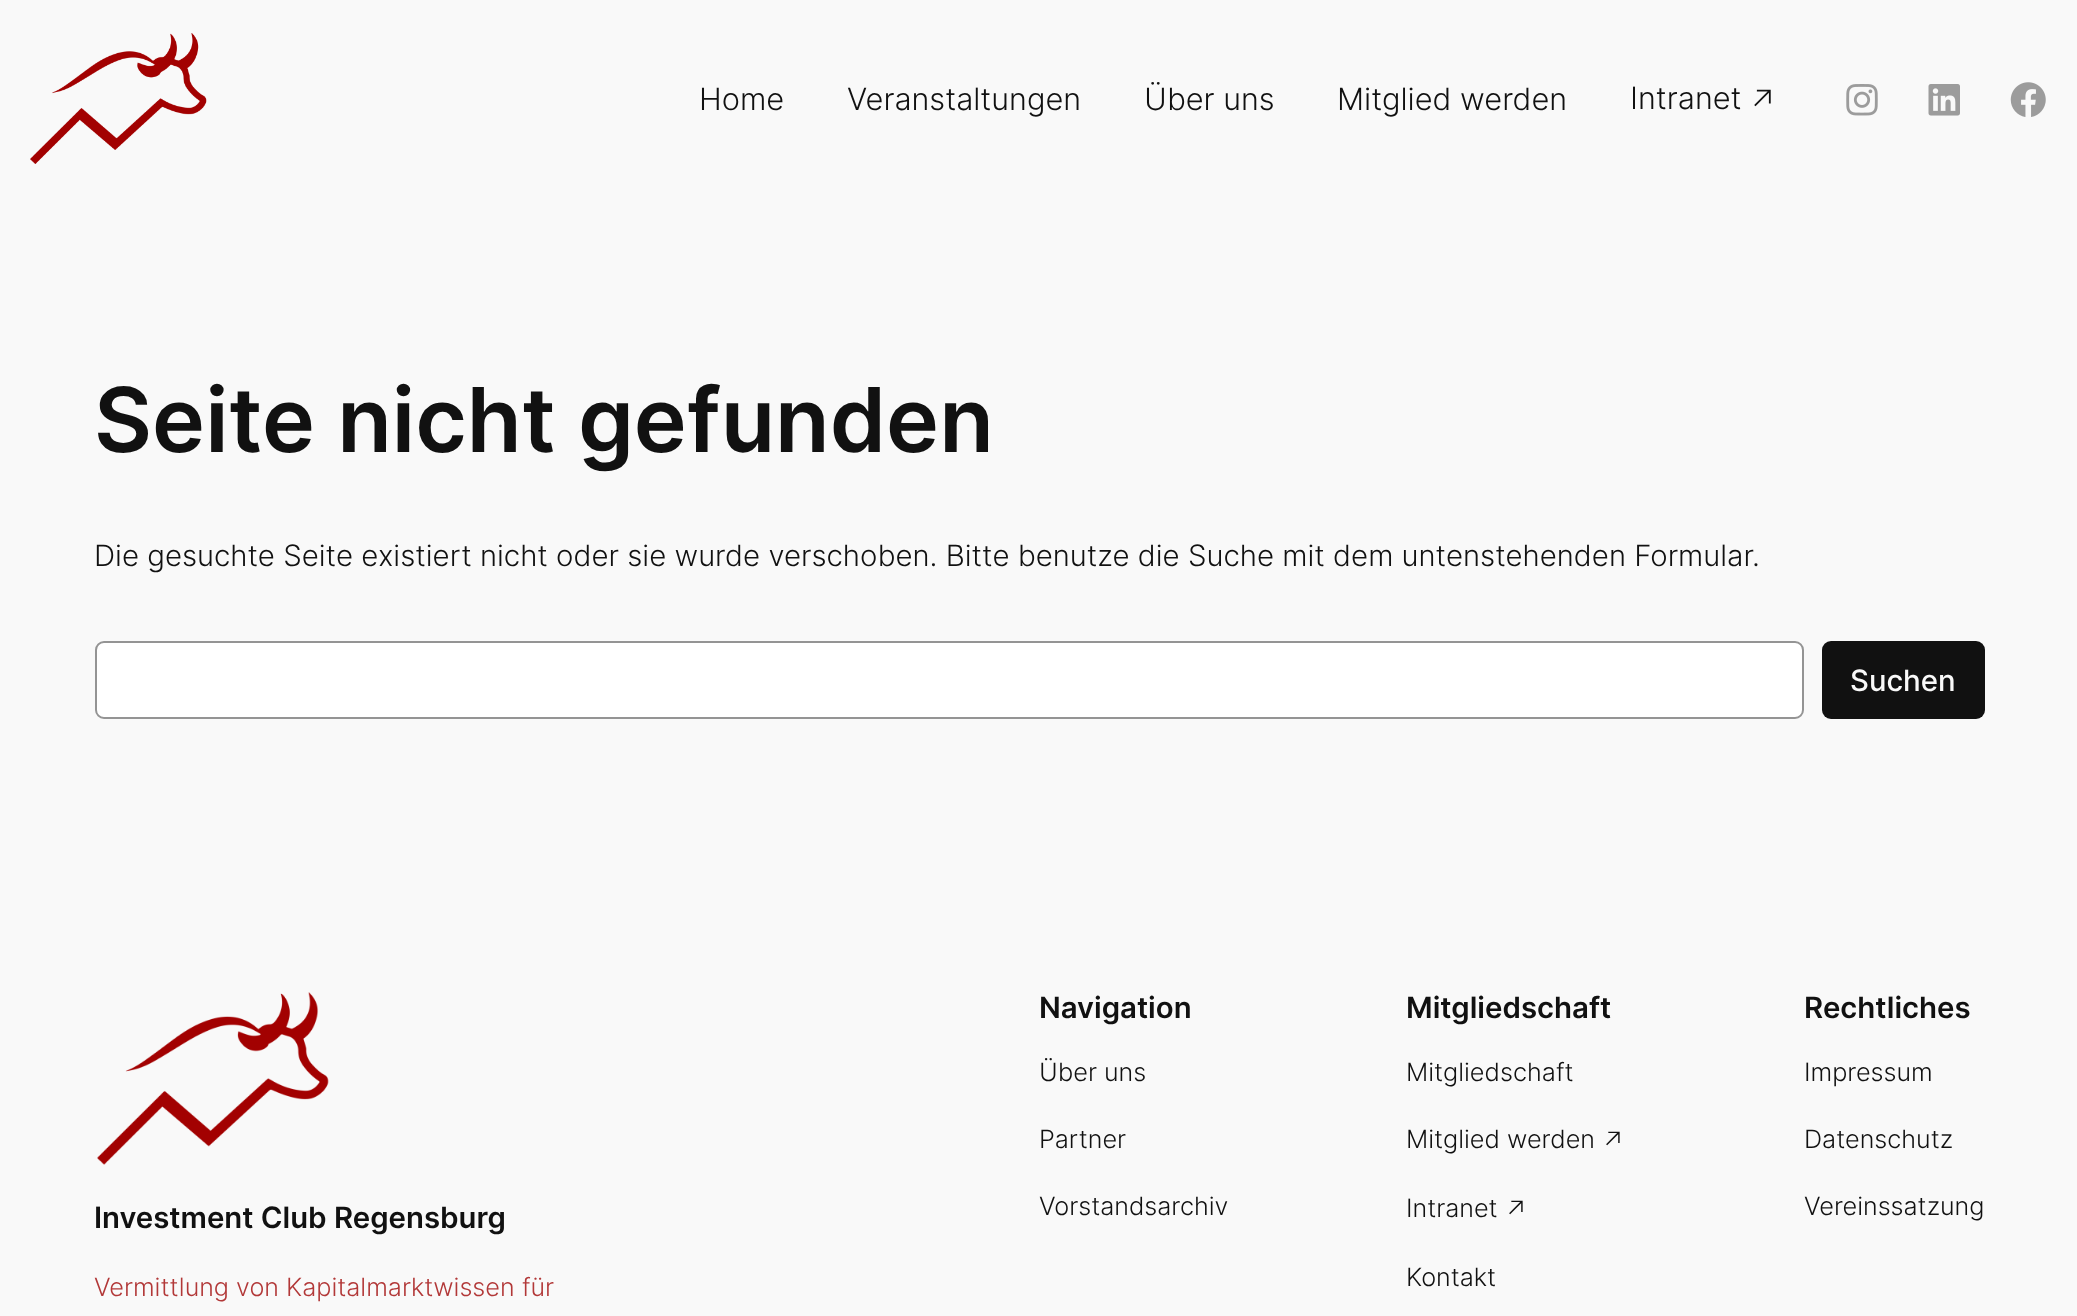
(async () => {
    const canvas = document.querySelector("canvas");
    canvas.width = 2077;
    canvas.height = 1316;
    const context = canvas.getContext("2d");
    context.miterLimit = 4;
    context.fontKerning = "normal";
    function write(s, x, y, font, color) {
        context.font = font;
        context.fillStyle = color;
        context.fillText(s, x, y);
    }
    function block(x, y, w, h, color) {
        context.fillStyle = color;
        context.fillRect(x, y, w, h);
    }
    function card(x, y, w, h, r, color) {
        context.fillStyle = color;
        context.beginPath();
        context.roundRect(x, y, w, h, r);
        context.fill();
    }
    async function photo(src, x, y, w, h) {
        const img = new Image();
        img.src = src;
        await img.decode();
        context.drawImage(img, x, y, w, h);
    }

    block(0, 0, 2077, 1316, "rgb(249, 249, 249)");
    await photo("media/1.png", 30, 33, 177, 131);
    write("Home", 699, 110, "300 30.75px Inter", "rgb(17, 17, 17)");
    write("Veranstaltungen", 847, 110, "300 30.75px Inter", "rgb(17, 17, 17)");
    write("Über uns", 1144, 110, "300 30.75px Inter", "rgb(17, 17, 17)");
    write("Mitglied werden", 1337, 110, "300 30.75px Inter", "rgb(17, 17, 17)");
    write("Intranet", 1630, 109, "300 30.75px Inter", "rgb(17, 17, 17)");
    write("↗", 1748, 112, "300 30.75px Inter", "rgb(17, 17, 17)");
    await photo("media/2.png", 1846, 84, 32, 32);
    await photo("media/3.png", 1928, 84, 32, 32);
    await photo("media/4.png", 2010, 82, 36, 35);
    write("Seite nicht gefunden", 94, 452, "600 89.5px Inter", "rgb(17, 17, 17)");
    write("Die gesuchte Seite existiert nicht oder sie wurde verschoben. Bitte benutze die Suche mit dem untenstehenden Formular.", 94, 566, "300 29.4px Inter", "rgb(17, 17, 17)");
    context.fillStyle = "rgb(255, 255, 255)";
    context.beginPath();
    context.roundRect(96, 642, 1707, 76, 8);
    context.fill();
    context.strokeStyle = "rgb(148, 148, 148)";
    context.lineWidth = 2;
    context.stroke();
    card(1822, 641, 163, 78, 9, "rgb(17, 17, 17)");
    write("Suchen", 1850, 691, "500 29.4px Inter", "rgb(249, 249, 249)");
    await photo("media/5.png", 97, 992, 232, 173);
    write("Investment Club Regensburg", 94, 1228, "600 29.4px Inter", "rgb(17, 17, 17)");
    write("Vermittlung von Kapitalmarktwissen für", 94, 1296, "300 25.25px Inter", "rgb(178, 56, 56)");
    write("Navigation", 1039, 1018, "600 29.4px Inter", "rgb(17, 17, 17)");
    write("Über uns", 1039, 1081, "300 25.25px Inter", "rgb(17, 17, 17)");
    write("Partner", 1039, 1148, "300 25.25px Inter", "rgb(17, 17, 17)");
    write("Vorstandsarchiv", 1039, 1215, "300 25.25px Inter", "rgb(17, 17, 17)");
    write("Mitgliedschaft", 1406, 1018, "600 29.4px Inter", "rgb(17, 17, 17)");
    write("Mitgliedschaft", 1406, 1081, "300 25.25px Inter", "rgb(17, 17, 17)");
    write("Mitglied werden", 1406, 1148, "300 25.25px Inter", "rgb(17, 17, 17)");
    write("↗", 1601, 1150, "300 25.25px Inter", "rgb(17, 17, 17)");
    write("Intranet", 1406, 1217, "300 25.25px Inter", "rgb(17, 17, 17)");
    write("↗", 1504, 1219, "300 25.25px Inter", "rgb(17, 17, 17)");
    write("Kontakt", 1406, 1286, "300 25.25px Inter", "rgb(17, 17, 17)");
    write("Rechtliches", 1804, 1018, "600 29.4px Inter", "rgb(17, 17, 17)");
    write("Impressum", 1804, 1081, "300 25.25px Inter", "rgb(17, 17, 17)");
    write("Datenschutz", 1804, 1148, "300 25.25px Inter", "rgb(17, 17, 17)");
    write("Vereinssatzung", 1804, 1215, "300 25.25px Inter", "rgb(17, 17, 17)");
})();
